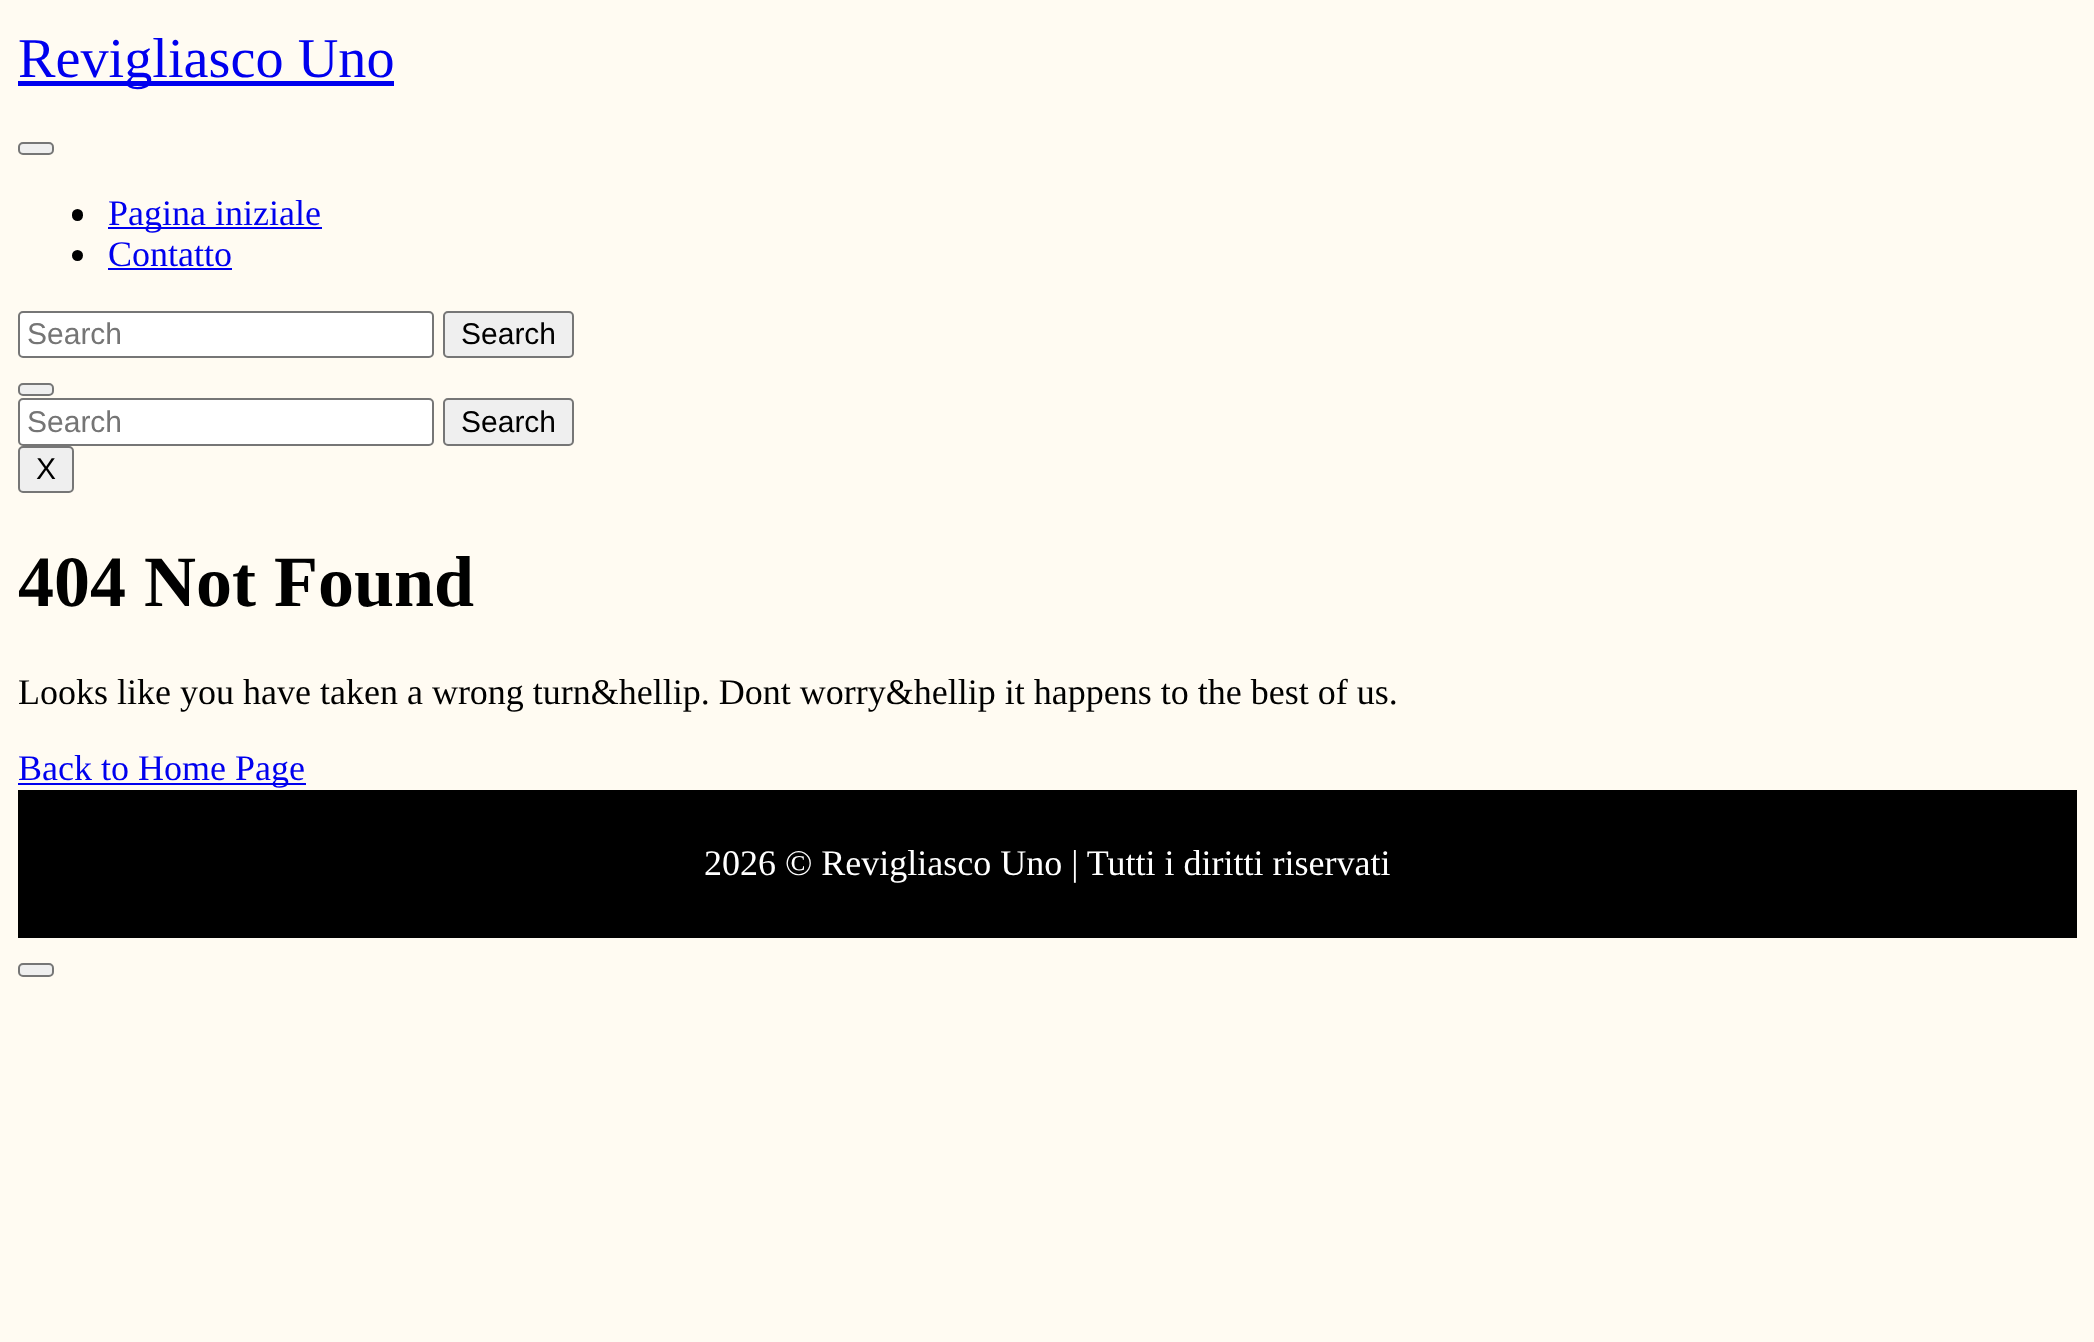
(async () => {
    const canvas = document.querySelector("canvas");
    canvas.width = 2094;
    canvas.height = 1342;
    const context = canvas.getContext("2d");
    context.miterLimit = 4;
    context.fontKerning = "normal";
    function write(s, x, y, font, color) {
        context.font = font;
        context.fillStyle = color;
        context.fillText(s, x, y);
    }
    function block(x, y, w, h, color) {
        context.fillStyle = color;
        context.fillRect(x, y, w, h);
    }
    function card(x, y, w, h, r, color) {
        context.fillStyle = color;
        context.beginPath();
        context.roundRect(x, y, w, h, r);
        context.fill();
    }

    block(0, 0, 2094, 1342, "rgb(255, 251, 242)");
    block(18, 81, 376, 5, "rgb(0, 0, 238)");
    write("Revigliasco Uno", 18, 77, "56.25px Liberation Serif", "rgb(0, 0, 238)");
    context.fillStyle = "rgb(239, 239, 239)";
    context.beginPath();
    context.roundRect(19, 143, 34, 11, 4);
    context.fill();
    context.strokeStyle = "rgb(118, 118, 118)";
    context.lineWidth = 2;
    context.stroke();
    card(72, 209, 11, 12, 5.5, "rgb(0, 0, 0)");
    block(108, 227, 214, 2, "rgb(0, 0, 238)");
    write("Pagina iniziale", 108, 225, "36px Liberation Serif", "rgb(0, 0, 238)");
    context.fillStyle = "rgb(0, 0, 0)";
    context.beginPath();
    context.arc(77.5, 255.5, 5.5, 0, Math.PI * 2);
    context.fill();
    write("Contatto", 108, 266, "36px Liberation Serif", "rgb(0, 0, 238)");
    block(108, 268, 124, 2, "rgb(0, 0, 238)");
    context.fillStyle = "rgb(255, 255, 255)";
    context.beginPath();
    context.roundRect(19, 312, 414, 45, 4);
    context.fill();
    context.stroke();
    write("Search", 27, 344, "30px Liberation Sans", "rgb(117, 117, 117)");
    context.fillStyle = "rgb(239, 239, 239)";
    context.beginPath();
    context.roundRect(444, 312, 129, 45, 4);
    context.fill();
    context.stroke();
    write("Search", 461, 344, "30px Liberation Sans", "rgb(0, 0, 0)");
    context.fillStyle = "rgb(239, 239, 239)";
    context.beginPath();
    context.roundRect(19, 384, 34, 11, 4);
    context.fill();
    context.stroke();
    context.fillStyle = "rgb(255, 255, 255)";
    context.beginPath();
    context.roundRect(19, 399, 414, 46, 4);
    context.fill();
    context.stroke();
    write("Search", 27, 432, "30px Liberation Sans", "rgb(117, 117, 117)");
    context.fillStyle = "rgb(239, 239, 239)";
    context.beginPath();
    context.roundRect(444, 399, 129, 46, 4);
    context.fill();
    context.stroke();
    write("Search", 461, 432, "30px Liberation Sans", "rgb(0, 0, 0)");
    context.fillStyle = "rgb(239, 239, 239)";
    context.beginPath();
    context.roundRect(19, 447, 54, 45, 4);
    context.fill();
    context.stroke();
    write("X", 36, 479, "30px Liberation Sans", "rgb(0, 0, 0)");
    write("404 Not Found", 18, 606, "bold 72px Liberation Serif", "rgb(0, 0, 0)");
    write("Looks like you have taken a wrong turn&hellip. Dont worry&hellip it happens to the best of us.", 18, 704, "36px Liberation Serif", "rgb(0, 0, 0)");
    block(18, 783, 288, 2, "rgb(0, 0, 238)");
    write("Back to Home Page", 18, 780, "36px Liberation Serif", "rgb(0, 0, 238)");
    block(18, 790, 2059, 148, "rgb(0, 0, 0)");
    write("2026 © Revigliasco Uno | Tutti i diritti riservati", 704, 875, "36px Liberation Serif", "rgb(255, 255, 255)");
    context.fillStyle = "rgb(239, 239, 239)";
    context.beginPath();
    context.roundRect(19, 964, 34, 12, 4);
    context.fill();
    context.stroke();
})();
